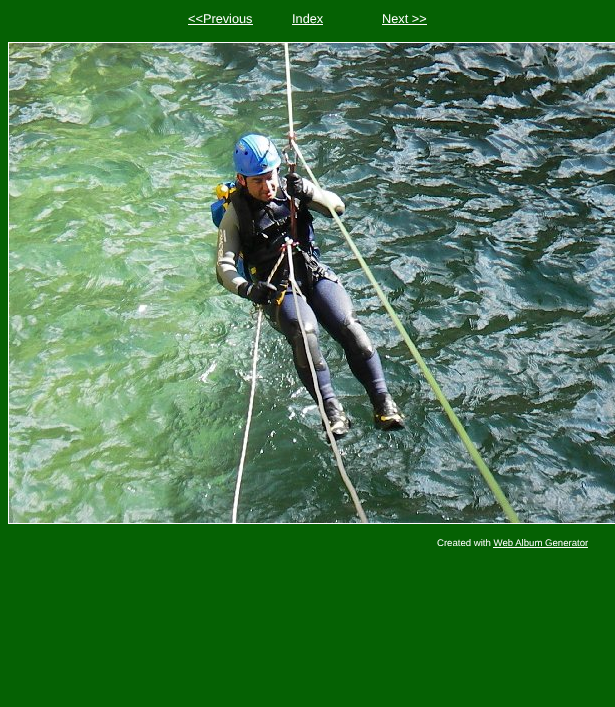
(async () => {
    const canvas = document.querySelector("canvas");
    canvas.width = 615;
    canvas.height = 707;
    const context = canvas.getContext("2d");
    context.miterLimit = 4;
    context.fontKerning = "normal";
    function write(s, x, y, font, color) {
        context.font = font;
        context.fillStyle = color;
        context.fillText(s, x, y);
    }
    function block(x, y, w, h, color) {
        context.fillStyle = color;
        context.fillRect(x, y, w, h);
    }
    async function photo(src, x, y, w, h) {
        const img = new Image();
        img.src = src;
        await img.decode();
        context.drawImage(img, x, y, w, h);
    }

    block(0, 0, 615, 707, "rgb(5, 97, 3)");
    write("<<Previous", 188, 23, "12.75px Liberation Sans", "rgb(255, 255, 255)");
    block(188, 24, 65, 1, "rgb(255, 255, 255)");
    write("Index", 292, 23, "12.75px Liberation Sans", "rgb(255, 255, 255)");
    block(292, 24, 31, 1, "rgb(255, 255, 255)");
    write("Next >>", 382, 23, "12.75px Liberation Sans", "rgb(255, 255, 255)");
    block(382, 24, 45, 1, "rgb(255, 255, 255)");
    context.strokeStyle = "rgb(255, 255, 255)";
    context.strokeRect(8.5, 42.5, 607, 481);
    await photo("media/1.png", 9, 43, 606, 480);
    write("Created with Web Album Generator", 437, 546, "9.6px Liberation Sans", "rgb(255, 255, 255)");
    block(493, 547, 95, 1, "rgb(255, 255, 255)");
})();
